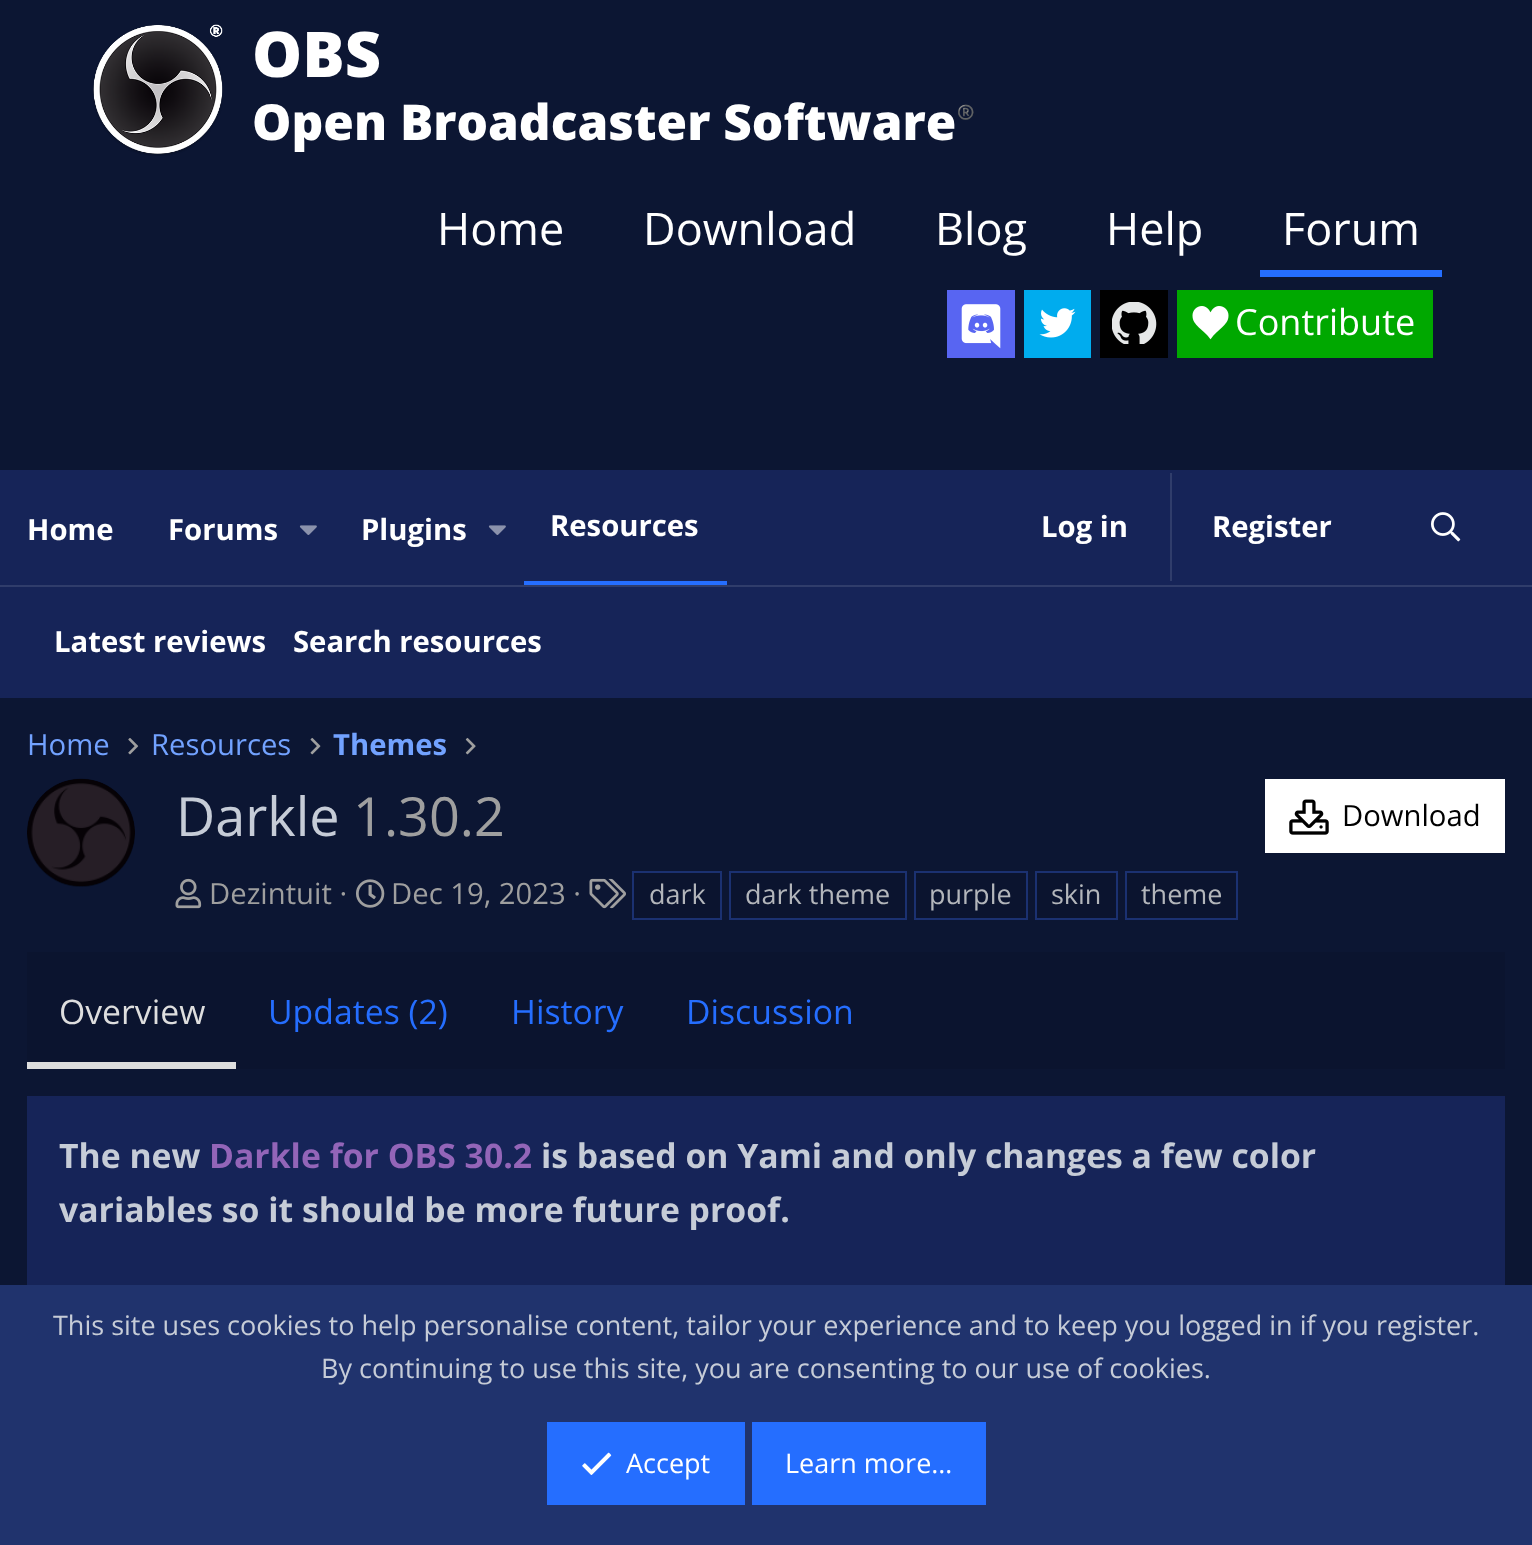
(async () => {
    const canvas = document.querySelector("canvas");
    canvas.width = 1532;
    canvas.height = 1545;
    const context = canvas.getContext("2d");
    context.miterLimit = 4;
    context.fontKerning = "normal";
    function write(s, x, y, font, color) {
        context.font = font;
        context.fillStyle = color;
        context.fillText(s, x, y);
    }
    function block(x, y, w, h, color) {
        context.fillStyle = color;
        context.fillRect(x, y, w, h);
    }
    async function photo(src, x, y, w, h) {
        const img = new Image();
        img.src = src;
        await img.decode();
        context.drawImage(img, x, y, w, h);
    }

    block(0, 0, 1532, 1545, "rgb(12, 22, 51)");
    await photo("media/1.png", 93, 24, 130, 132);
    write("OBS", 252, 77, "800 63px Open Sans", "rgb(255, 255, 255)");
    write("Open Broadcaster Software", 252, 140, "800 49.5px Open Sans", "rgb(255, 255, 255)");
    write("®️", 957, 117, "bold 14px Noto Color Emoji", "rgb(255, 255, 255)");
    write("Home", 437, 245, "45px Open Sans", "rgb(255, 255, 255)");
    write("Download", 643, 245, "45px Open Sans", "rgb(255, 255, 255)");
    write("Blog", 935, 245, "45px Open Sans", "rgb(255, 255, 255)");
    write("Help", 1106, 245, "45px Open Sans", "rgb(255, 255, 255)");
    block(1260, 270, 182, 7, "rgb(37, 110, 255)");
    write("Forum", 1282, 245, "45px Open Sans", "rgb(255, 255, 255)");
    block(947, 290, 68, 68, "rgb(88, 101, 242)");
    await photo("media/2.png", 961, 304, 40, 45);
    block(1024, 290, 67, 68, "rgb(0, 172, 238)");
    await photo("media/3.png", 1039, 308, 37, 30);
    block(1100, 290, 68, 68, "rgb(0, 0, 0)");
    await photo("media/4.png", 1112, 302, 45, 42);
    block(1177, 290, 256, 68, "rgb(0, 168, 0)");
    await photo("media/5.png", 1192, 306, 37, 34);
    write("Contribute", 1235, 335, "36px Open Sans", "rgb(255, 255, 255)");
    block(0, 470, 1532, 115, "rgb(22, 36, 88)");
    write("Home", 27, 540, "bold 29.25px Open Sans", "rgb(255, 255, 255)");
    write("Forums", 168, 540, "bold 29.25px Open Sans", "rgb(255, 255, 255)");
    await photo("media/6.png", 299, 525, 18, 10);
    write("Plugins", 361, 540, "bold 29.25px Open Sans", "rgb(255, 255, 255)");
    await photo("media/6.png", 488, 525, 18, 10);
    block(524, 581, 203, 4, "rgb(37, 110, 255)");
    write("Resources", 550, 536, "bold 29.25px Open Sans", "rgb(255, 255, 255)");
    write("Log in", 1041, 537, "bold 29.25px Open Sans", "rgb(255, 255, 255)");
    block(1170, 473, 2, 108, "rgb(48, 61, 107)");
    write("Register", 1212, 537, "bold 29.25px Open Sans", "rgb(255, 255, 255)");
    await photo("media/7.png", 1431, 512, 30, 30);
    block(0, 587, 1532, 111, "rgb(22, 36, 88)");
    block(0, 585, 1532, 2, "rgb(48, 61, 107)");
    write("Latest reviews", 54, 652, "bold 29.25px Open Sans", "rgb(255, 255, 255)");
    write("Search resources", 293, 652, "bold 29.25px Open Sans", "rgb(255, 255, 255)");
    write("Home", 27, 755, "29.25px Open Sans", "rgb(114, 162, 255)");
    await photo("media/8.png", 128, 738, 11, 17);
    write("Resources", 151, 755, "29.25px Open Sans", "rgb(114, 162, 255)");
    await photo("media/9.png", 310, 737, 11, 18);
    write("Themes", 333, 755, "bold 29.25px Open Sans", "rgb(114, 162, 255)");
    await photo("media/10.png", 465, 737, 11, 18);
    context.fillStyle = "rgb(8, 15, 34)";
    context.beginPath();
    context.arc(81, 833, 54, 0, Math.PI * 2);
    context.fill();
    await photo("media/11.png", 27, 778, 108, 108);
    write("Darkle", 176, 836, "54px Open Sans", "rgb(198, 204, 215)");
    write("1.30.2", 353, 836, "54px Open Sans", "rgb(159, 159, 159)");
    block(1265, 779, 240, 74, "rgb(255, 255, 255)");
    await photo("media/12.png", 1289, 799, 40, 36);
    write("Download", 1342, 826, "29.25px Open Sans", "rgb(0, 0, 0)");
    await photo("media/13.png", 175, 878, 27, 31);
    write("Dezintuit ·", 209, 904, "29.25px Open Sans", "rgb(159, 159, 159)");
    await photo("media/14.png", 356, 879, 29, 29);
    write("Dec 19, 2023 ·", 391, 904, "29.25px Open Sans", "rgb(159, 159, 159)");
    await photo("media/15.png", 589, 878, 37, 31);
    context.fillStyle = "rgb(11, 20, 47)";
    context.beginPath();
    context.rect(633, 872, 88, 47);
    context.fill();
    context.strokeStyle = "rgb(27, 49, 113)";
    context.lineWidth = 2;
    context.stroke();
    write("dark", 649, 904, "27px Open Sans", "rgb(179, 182, 187)");
    context.fillStyle = "rgb(11, 20, 47)";
    context.beginPath();
    context.rect(730, 872, 176, 47);
    context.fill();
    context.stroke();
    write("dark theme", 745, 904, "27px Open Sans", "rgb(179, 182, 187)");
    context.fillStyle = "rgb(11, 20, 47)";
    context.beginPath();
    context.rect(915, 872, 112, 47);
    context.fill();
    context.stroke();
    write("purple", 929, 904, "27px Open Sans", "rgb(179, 182, 187)");
    context.fillStyle = "rgb(11, 20, 47)";
    context.beginPath();
    context.rect(1036, 872, 81, 47);
    context.fill();
    context.stroke();
    write("skin", 1051, 904, "27px Open Sans", "rgb(179, 182, 187)");
    context.fillStyle = "rgb(11, 20, 47)";
    context.beginPath();
    context.rect(1126, 872, 111, 47);
    context.fill();
    context.stroke();
    write("theme", 1141, 904, "27px Open Sans", "rgb(179, 182, 187)");
    block(27, 952, 1478, 117, "rgb(11, 20, 47)");
    block(27, 1062, 209, 7, "rgb(222, 222, 222)");
    write("Overview", 59, 1024, "33.75px Open Sans", "rgb(222, 222, 222)");
    write("Updates (2)", 268, 1024, "33.75px Open Sans", "rgb(37, 110, 255)");
    write("History", 511, 1024, "33.75px Open Sans", "rgb(37, 110, 255)");
    write("Discussion", 686, 1024, "33.75px Open Sans", "rgb(37, 110, 255)");
    block(27, 1096, 1478, 189, "rgb(22, 36, 88)");
    write("The new", 59, 1168, "bold 33.75px Open Sans", "rgb(198, 204, 215)");
    write("Darkle for OBS 30.2", 209, 1168, "bold 33.75px Open Sans", "rgb(147, 101, 184)");
    write("is based on Yami and only changes a few color", 541, 1168, "bold 33.75px Open Sans", "rgb(198, 204, 215)");
    write("variables so it should be more future proof.", 59, 1222, "bold 33.75px Open Sans", "rgb(198, 204, 215)");
    block(0, 1285, 1532, 260, "rgb(32, 51, 109)");
    write("This site uses cookies to help personalise content, tailor your experience and to keep you logged in if you register.", 53, 1335, "27px Open Sans", "rgb(198, 204, 215)");
    write("By continuing to use this site, you are consenting to our use of cookies.", 321, 1378, "27px Open Sans", "rgb(198, 204, 215)");
    block(547, 1422, 198, 83, "rgb(37, 110, 255)");
    await photo("media/16.png", 582, 1452, 30, 23);
    write("Accept", 626, 1473, "27px Open Sans", "rgb(255, 255, 255)");
    block(752, 1422, 234, 83, "rgb(37, 110, 255)");
    write("Learn more…", 785, 1473, "27px Open Sans", "rgb(255, 255, 255)");
})();
